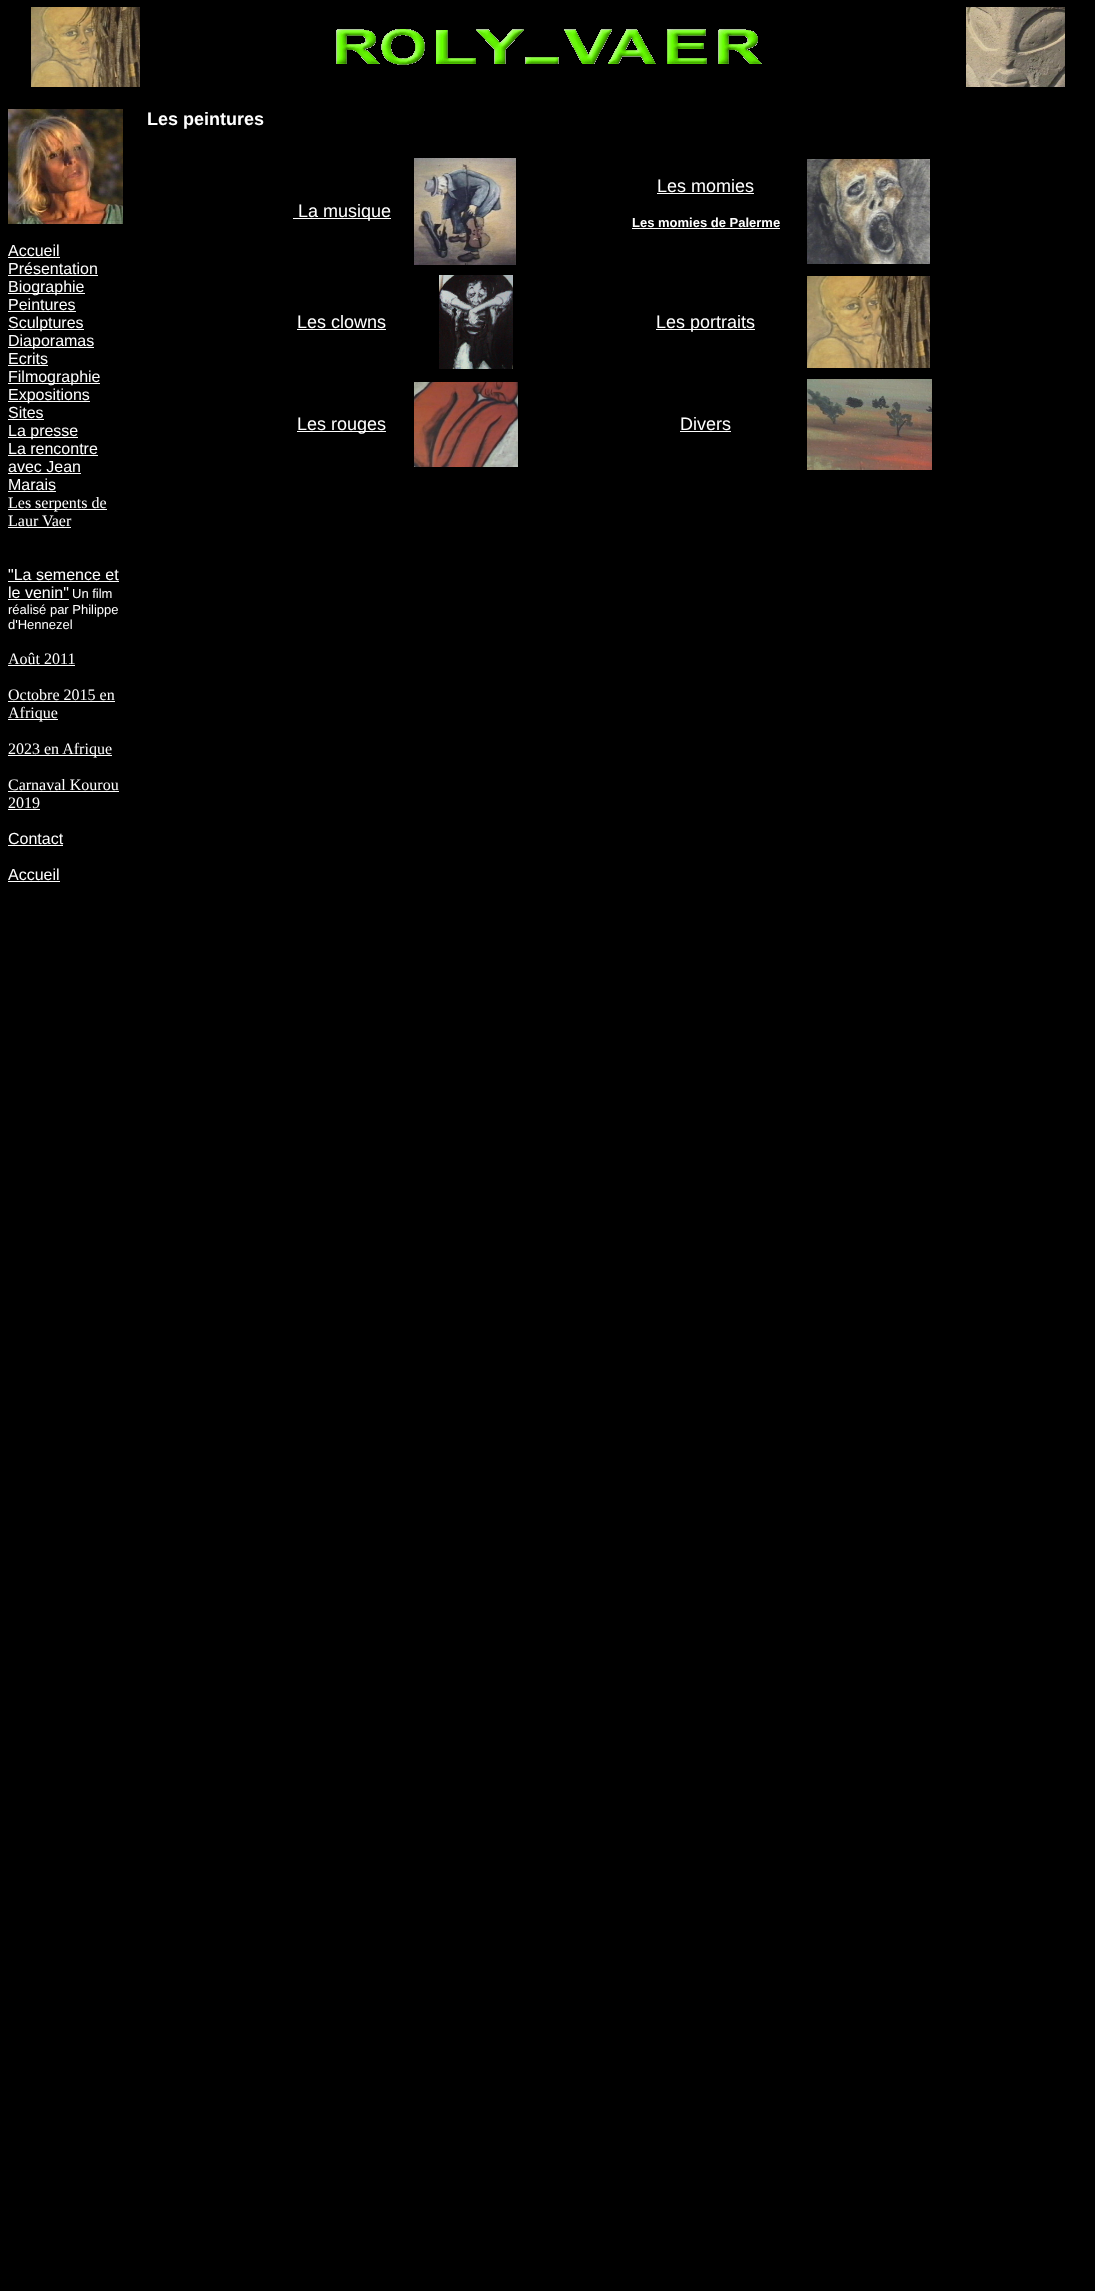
(async () => {
    const canvas = document.querySelector("canvas");
    canvas.width = 1095;
    canvas.height = 2291;
    const context = canvas.getContext("2d");
    context.miterLimit = 4;
    context.fontKerning = "normal";
    function write(s, x, y, font, color) {
        context.font = font;
        context.fillStyle = color;
        context.fillText(s, x, y);
    }
    function block(x, y, w, h, color) {
        context.fillStyle = color;
        context.fillRect(x, y, w, h);
    }
    async function photo(src, x, y, w, h) {
        const img = new Image();
        img.src = src;
        await img.decode();
        context.drawImage(img, x, y, w, h);
    }

    block(0, 0, 1095, 2291, "rgb(0, 0, 0)");
    await photo("media/1.png", 31, 7, 109, 80);
    await photo("media/2.png", 336, 29, 426, 36);
    await photo("media/3.png", 966, 7, 99, 80);
    await photo("media/4.png", 8, 109, 115, 115);
    write("Accueil", 8, 256, "16px Liberation Sans", "rgb(255, 255, 255)");
    block(8, 257, 52, 1, "rgb(255, 255, 255)");
    write("Présentation", 8, 274, "16px Liberation Sans", "rgb(255, 255, 255)");
    block(8, 275, 90, 1, "rgb(255, 255, 255)");
    block(8, 293, 77, 1, "rgb(255, 255, 255)");
    write("Biographie", 8, 292, "16px Liberation Sans", "rgb(255, 255, 255)");
    write("Peintures", 8, 310, "16px Liberation Sans", "rgb(255, 255, 255)");
    block(8, 311, 68, 1, "rgb(255, 255, 255)");
    block(8, 329, 76, 1, "rgb(255, 255, 255)");
    write("Sculptures", 8, 328, "16px Liberation Sans", "rgb(255, 255, 255)");
    block(8, 347, 86, 1, "rgb(255, 255, 255)");
    write("Diaporamas", 8, 346, "16px Liberation Sans", "rgb(255, 255, 255)");
    write("Ecrits", 8, 364, "16px Liberation Sans", "rgb(255, 255, 255)");
    block(8, 365, 40, 1, "rgb(255, 255, 255)");
    block(8, 383, 92, 1, "rgb(255, 255, 255)");
    write("Filmographie", 8, 382, "16px Liberation Sans", "rgb(255, 255, 255)");
    block(8, 401, 82, 1, "rgb(255, 255, 255)");
    write("Expositions", 8, 400, "16px Liberation Sans", "rgb(255, 255, 255)");
    write("Sites", 8, 418, "16px Liberation Sans", "rgb(255, 255, 255)");
    block(8, 419, 36, 1, "rgb(255, 255, 255)");
    block(8, 437, 70, 1, "rgb(255, 255, 255)");
    write("La presse", 8, 436, "16px Liberation Sans", "rgb(255, 255, 255)");
    write("La rencontre", 8, 454, "16px Liberation Sans", "rgb(255, 255, 255)");
    block(8, 455, 90, 1, "rgb(255, 255, 255)");
    write("avec Jean", 8, 472, "16px Liberation Sans", "rgb(255, 255, 255)");
    block(8, 473, 73, 1, "rgb(255, 255, 255)");
    write("Marais", 8, 490, "16px Liberation Sans", "rgb(255, 255, 255)");
    block(8, 491, 48, 1, "rgb(255, 255, 255)");
    block(8, 509, 99, 1, "rgb(255, 255, 255)");
    write("Les serpents de", 8, 508, "16px Liberation Serif", "rgb(255, 255, 255)");
    write("Laur Vaer", 8, 526, "16px Liberation Serif", "rgb(255, 255, 255)");
    block(8, 527, 63, 1, "rgb(255, 255, 255)");
    write("\"La semence et", 8, 580, "16px Liberation Sans", "rgb(255, 255, 255)");
    block(8, 581, 111, 1, "rgb(255, 255, 255)");
    write("le venin\"", 8, 598, "16px Liberation Sans", "rgb(255, 255, 255)");
    block(8, 599, 61, 1, "rgb(255, 255, 255)");
    write("Un film", 72, 598, "13px Liberation Sans", "rgb(255, 255, 255)");
    write("réalisé par Philippe", 8, 614, "13px Liberation Sans", "rgb(255, 255, 255)");
    write("d'Hennezel", 8, 629, "13px Liberation Sans", "rgb(255, 255, 255)");
    write("Août 2011", 8, 664, "16px Liberation Serif", "rgb(255, 255, 255)");
    block(8, 665, 67, 1, "rgb(255, 255, 255)");
    write("Octobre 2015 en", 8, 700, "16px Liberation Serif", "rgb(255, 255, 255)");
    block(8, 701, 107, 1, "rgb(255, 255, 255)");
    block(8, 719, 50, 1, "rgb(255, 255, 255)");
    write("Afrique", 8, 718, "16px Liberation Serif", "rgb(255, 255, 255)");
    block(8, 755, 104, 1, "rgb(255, 255, 255)");
    write("2023 en Afrique", 8, 754, "16px Liberation Serif", "rgb(255, 255, 255)");
    write("Carnaval Kourou", 8, 790, "16px Liberation Serif", "rgb(255, 255, 255)");
    block(8, 791, 111, 1, "rgb(255, 255, 255)");
    write("2019", 8, 808, "16px Liberation Serif", "rgb(255, 255, 255)");
    block(8, 809, 32, 1, "rgb(255, 255, 255)");
    write("Contact", 8, 844, "16px Liberation Sans", "rgb(255, 255, 255)");
    block(8, 845, 55, 1, "rgb(255, 255, 255)");
    write("Accueil", 8, 880, "16px Liberation Sans", "rgb(255, 255, 255)");
    block(8, 881, 52, 1, "rgb(255, 255, 255)");
    write("Les peintures", 147, 125, "bold 18px Liberation Sans", "rgb(255, 255, 255)");
    block(293, 218, 98, 1, "rgb(255, 255, 255)");
    write("La musique", 298, 217, "18px Liberation Sans", "rgb(255, 255, 255)");
    await photo("media/5.png", 414, 158, 102, 107);
    write("Les momies", 657, 192, "18px Liberation Sans", "rgb(255, 255, 255)");
    block(657, 193, 97, 1, "rgb(255, 255, 255)");
    write("Les momies de Palerme", 632, 227, "bold 13px Liberation Sans", "rgb(255, 255, 255)");
    block(632, 228, 148, 1, "rgb(255, 255, 255)");
    await photo("media/6.png", 807, 159, 123, 105);
    write("Les clowns", 297, 328, "18px Liberation Sans", "rgb(255, 255, 255)");
    block(297, 329, 89, 1, "rgb(255, 255, 255)");
    await photo("media/7.png", 439, 275, 74, 94);
    block(656, 329, 99, 1, "rgb(255, 255, 255)");
    write("Les portraits", 656, 328, "18px Liberation Sans", "rgb(255, 255, 255)");
    await photo("media/8.png", 807, 276, 123, 92);
    block(297, 431, 89, 1, "rgb(255, 255, 255)");
    write("Les rouges", 297, 430, "18px Liberation Sans", "rgb(255, 255, 255)");
    await photo("media/9.png", 414, 382, 104, 85);
    write("Divers", 680, 430, "18px Liberation Sans", "rgb(255, 255, 255)");
    block(680, 431, 51, 1, "rgb(255, 255, 255)");
    await photo("media/10.png", 807, 379, 125, 91);
})();
